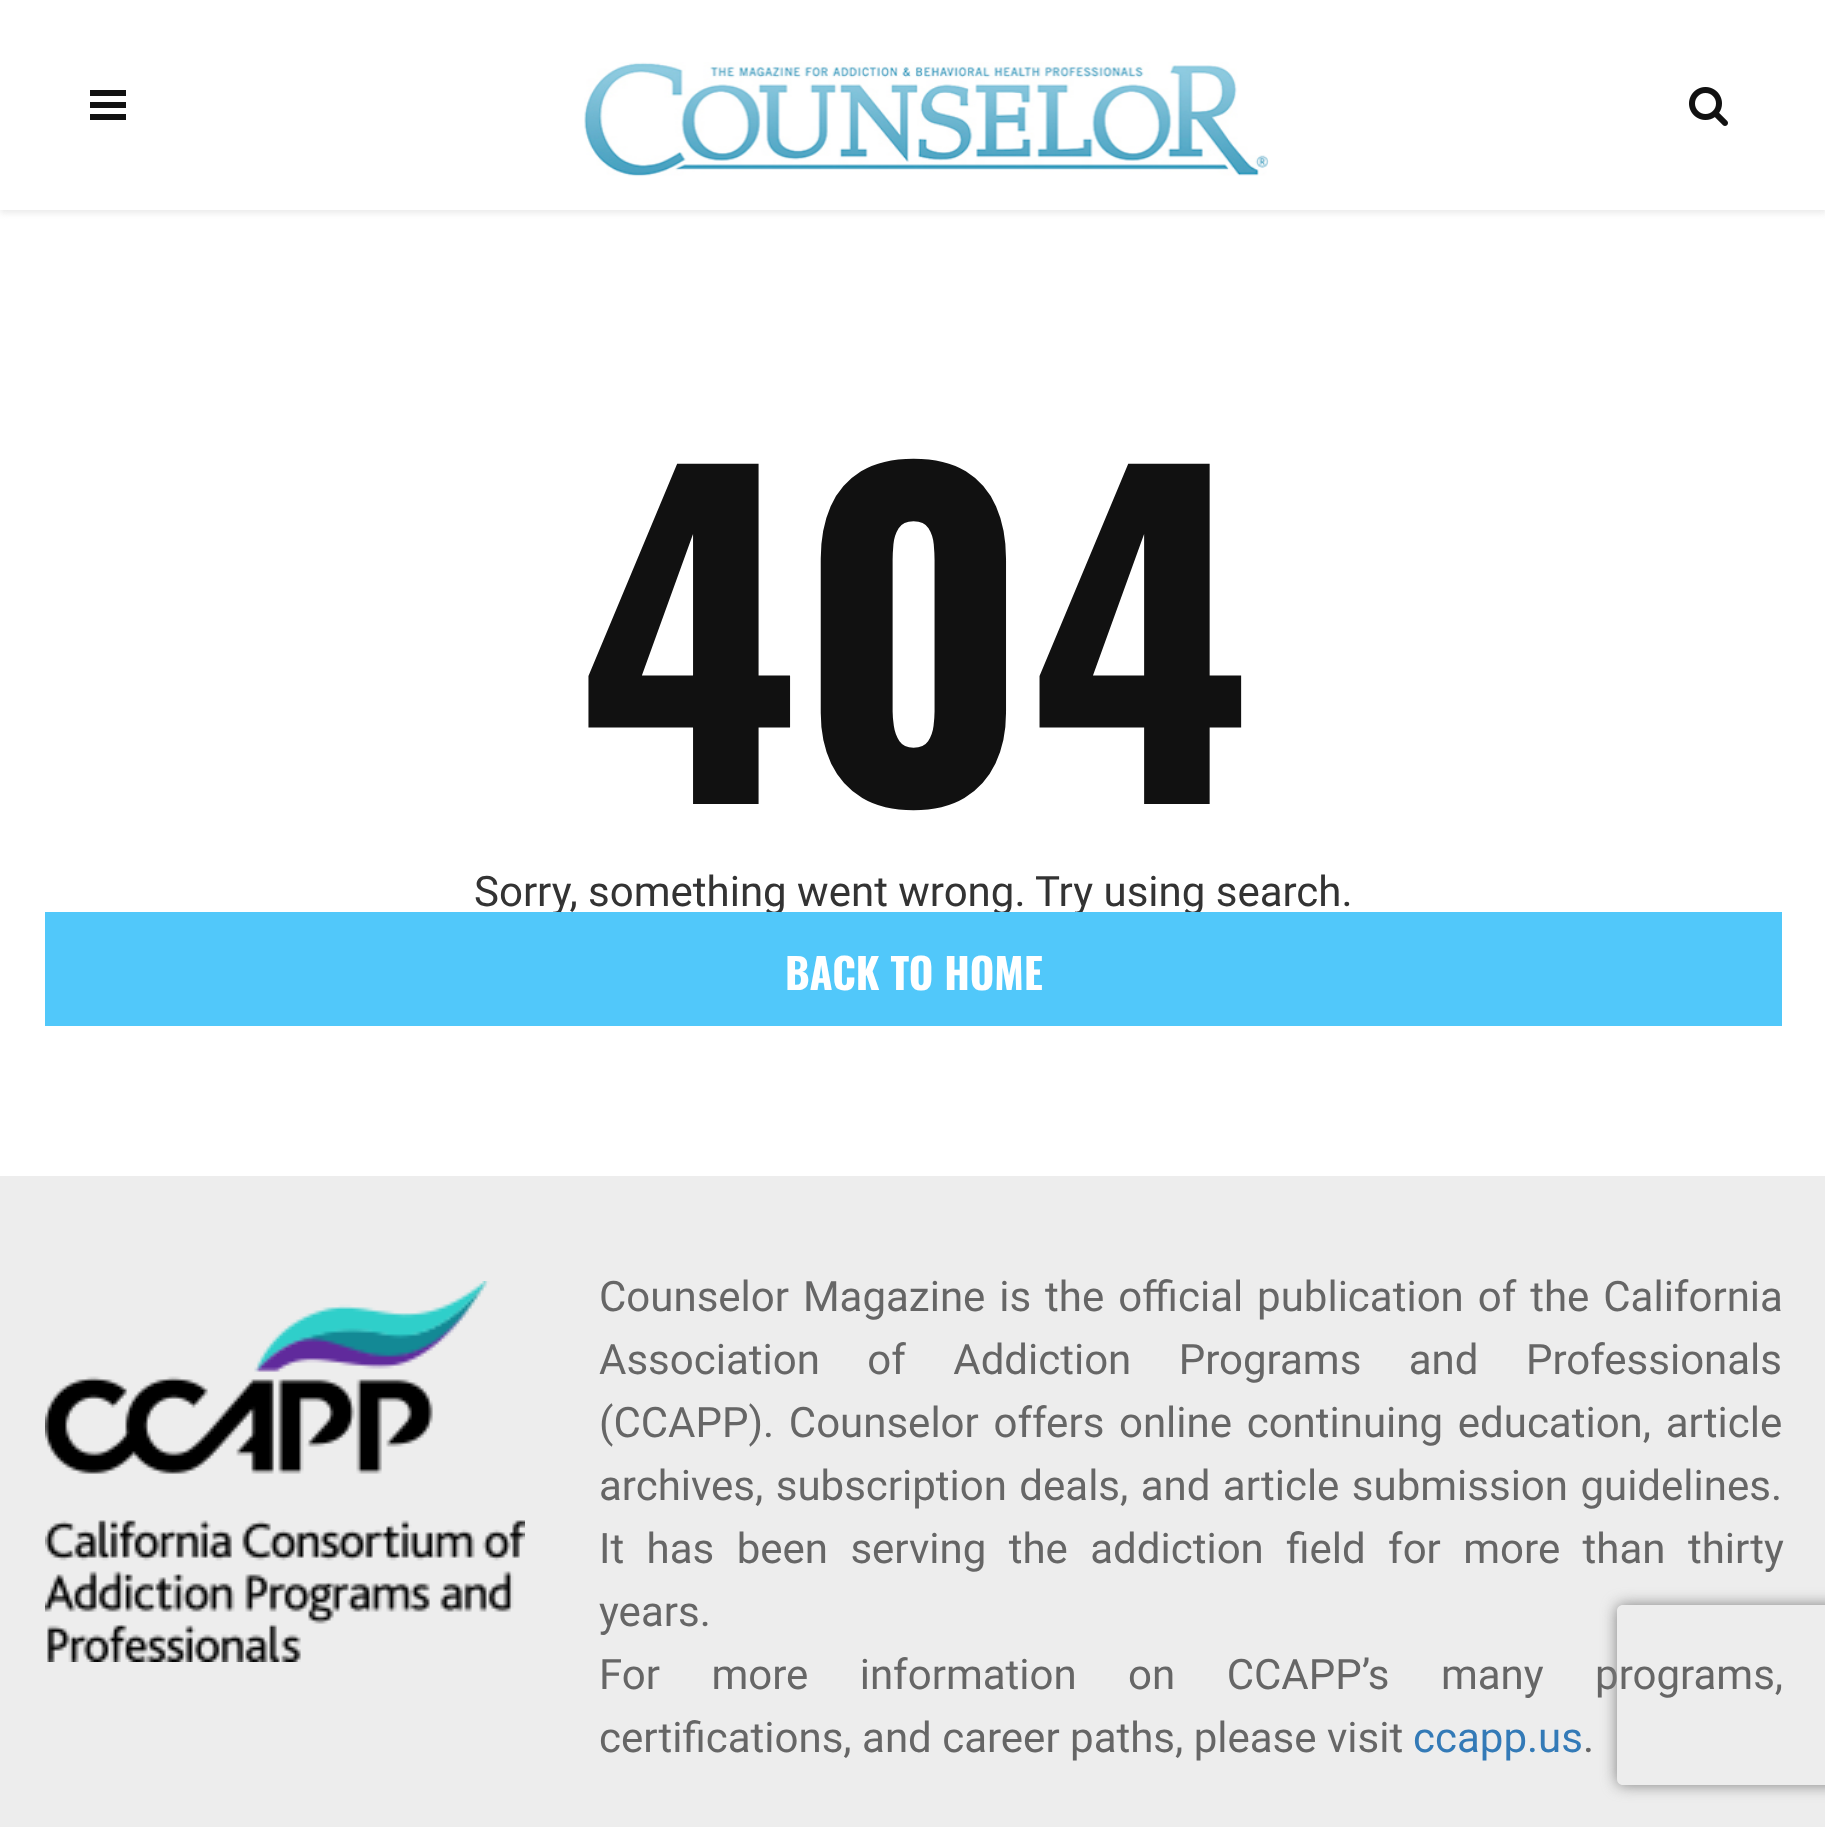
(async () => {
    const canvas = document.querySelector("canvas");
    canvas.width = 1825;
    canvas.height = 1827;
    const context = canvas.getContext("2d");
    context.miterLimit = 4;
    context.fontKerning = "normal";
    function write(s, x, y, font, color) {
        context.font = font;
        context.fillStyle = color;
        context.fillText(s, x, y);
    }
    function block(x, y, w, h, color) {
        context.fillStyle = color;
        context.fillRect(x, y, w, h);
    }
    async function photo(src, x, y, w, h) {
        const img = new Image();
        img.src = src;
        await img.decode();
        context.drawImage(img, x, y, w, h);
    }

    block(0, 0, 1825, 1827, "rgb(255, 255, 255)");
    context.fillStyle = "rgb(234, 234, 234)";
    context.filter = "blur(3px)";
    context.beginPath();
    context.rect(0, 3, 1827, 210);
    context.fill();
    context.filter = "none";
    block(0, 0, 1825, 210, "rgb(255, 255, 255)");
    block(90, 90, 36, 6, "rgb(17, 17, 17)");
    block(90, 102, 36, 6, "rgb(17, 17, 17)");
    block(90, 114, 36, 6, "rgb(17, 17, 17)");
    await photo("media/1.png", 584, 62, 685, 115);
    await photo("media/2.png", 1689, 87, 39, 39);
    write("404", 578, 804, "bold 420px Oswald", "rgb(17, 17, 17)");
    write("Sorry, something went wrong. Try using search.", 474, 906, "42px Roboto", "rgb(51, 51, 51)");
    block(45, 912, 1737, 114, "rgb(81, 200, 250)");
    write("BACK TO HOME", 785, 990, "bold 42px Oswald", "rgb(255, 255, 255)");
    block(0, 1176, 1825, 651, "rgb(237, 237, 237)");
    await photo("media/3.png", 45, 1281, 480, 381);
    context.wordSpacing = "3.5px";
    write("Counselor Magazine is the official publication of the California", 599, 1311, "42px Roboto", "rgb(102, 102, 102)");
    context.wordSpacing = "37px";
    write("Association of Addiction Programs and Professionals", 599, 1374, "42px Roboto", "rgb(102, 102, 102)");
    context.wordSpacing = "4.25px";
    write("(CCAPP). Counselor offers online continuing education, article", 599, 1437, "42px Roboto", "rgb(102, 102, 102)");
    context.wordSpacing = "2px";
    write("archives, subscription deals, and article submission guidelines.", 599, 1500, "42px Roboto", "rgb(102, 102, 102)");
    context.wordSpacing = "12px";
    write("It has been serving the addiction field for more than thirty", 599, 1563, "42px Roboto", "rgb(102, 102, 102)");
    context.wordSpacing = "0px";
    write("years.", 599, 1626, "42px Roboto", "rgb(102, 102, 102)");
    context.wordSpacing = "41px";
    write("For more information on CCAPP’s many programs,", 599, 1689, "42px Roboto", "rgb(102, 102, 102)");
    context.wordSpacing = "0px";
    write("certifications, and career paths, please visit", 599, 1752, "42px Roboto", "rgb(102, 102, 102)");
    write("ccapp.us", 1413, 1752, "42px Roboto", "rgb(51, 122, 183)");
    write(".", 1583, 1752, "42px Roboto", "rgb(102, 102, 102)");
    context.save();
    context.beginPath();
    context.moveTo(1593, 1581);
    context.lineTo(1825, 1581);
    context.lineTo(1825, 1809);
    context.lineTo(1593, 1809);
    context.closePath();
    context.moveTo(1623, 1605);
    context.lineTo(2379, 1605);
    context.bezierCurveTo(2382.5, 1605, 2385, 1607.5, 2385, 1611);
    context.lineTo(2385, 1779);
    context.bezierCurveTo(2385, 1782.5, 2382.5, 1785, 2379, 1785);
    context.lineTo(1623, 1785);
    context.bezierCurveTo(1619.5, 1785, 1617, 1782.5, 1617, 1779);
    context.lineTo(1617, 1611);
    context.bezierCurveTo(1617, 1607.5, 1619.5, 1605, 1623, 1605);
    context.closePath();
    context.clip("evenodd");
    context.fillStyle = "rgb(128, 128, 128)";
    context.filter = "blur(7.5px)";
    context.beginPath();
    context.roundRect(1617, 1605, 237, 180, 6);
    context.fill();
    context.filter = "none";
    context.restore();
})();
